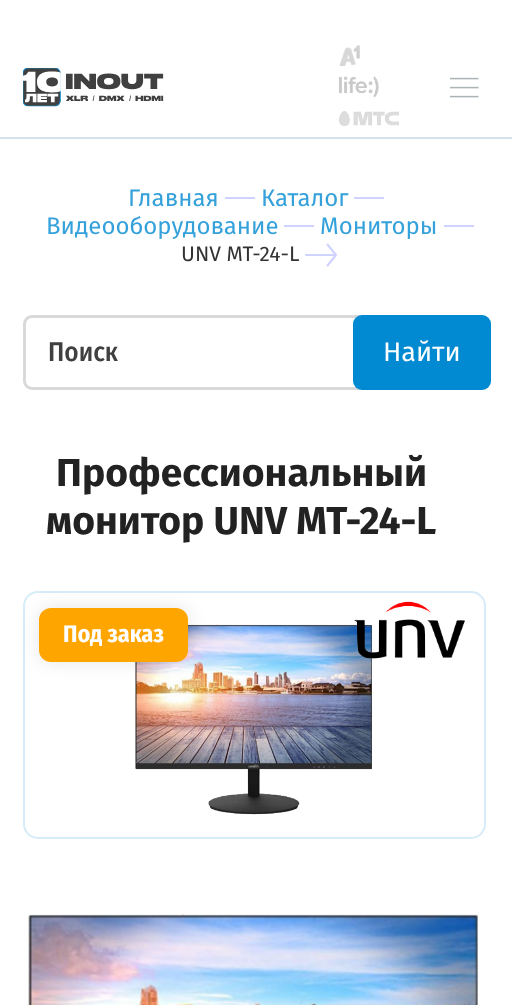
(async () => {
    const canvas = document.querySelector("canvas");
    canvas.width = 512;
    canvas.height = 1005;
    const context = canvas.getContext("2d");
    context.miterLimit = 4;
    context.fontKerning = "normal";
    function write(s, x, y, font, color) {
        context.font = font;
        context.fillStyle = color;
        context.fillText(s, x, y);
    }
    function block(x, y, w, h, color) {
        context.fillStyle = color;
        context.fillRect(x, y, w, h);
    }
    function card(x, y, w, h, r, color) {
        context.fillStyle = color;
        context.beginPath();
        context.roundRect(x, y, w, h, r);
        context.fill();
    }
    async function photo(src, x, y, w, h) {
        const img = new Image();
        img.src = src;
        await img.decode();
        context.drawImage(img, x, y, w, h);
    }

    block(0, 0, 512, 1005, "rgb(255, 255, 255)");
    block(0, 137, 512, 2, "rgb(212, 226, 235)");
    await photo("media/1.png", 23, 68, 141, 39);
    await photo("media/2.png", 339, 45, 21, 21);
    await photo("media/3.png", 339, 76, 40, 22);
    await photo("media/4.png", 339, 111, 60, 15);
    await photo("media/5.png", 450, 77, 29, 21);
    write("Главная", 128, 206, "24px Fira Sans", "rgb(52, 161, 219)");
    block(225, 197, 30, 2, "rgb(207, 211, 255)");
    write("Каталог", 261, 206, "24px Fira Sans", "rgb(52, 161, 219)");
    block(354, 197, 30, 2, "rgb(207, 211, 255)");
    write("Видеооборудование", 46, 234, "24px Fira Sans", "rgb(52, 161, 219)");
    block(284, 225, 30, 2, "rgb(207, 211, 255)");
    write("Мониторы", 320, 234, "24px Fira Sans", "rgb(52, 161, 219)");
    block(444, 225, 30, 2, "rgb(207, 211, 255)");
    write("UNV MT-24-L", 181, 261, "21px Fira Sans", "rgb(51, 51, 51)");
    context.beginPath();
    context.moveTo(327.5, 244.5);
    context.lineTo(336, 255);
    context.lineTo(327.5, 265.5);
    context.moveTo(336, 255);
    context.lineTo(306, 255);
    context.closePath();
    context.strokeStyle = "rgb(207, 211, 255)";
    context.lineWidth = 2.1;
    context.lineCap = "round";
    context.lineJoin = "round";
    context.stroke();
    context.beginPath();
    context.roundRect(24.5, 316.5, 465, 72, 7.5);
    context.strokeStyle = "rgb(217, 217, 217)";
    context.lineWidth = 3;
    context.lineJoin = "miter";
    context.stroke();
    write("Поиск", 48, 361, "500 27px Fira Sans Condensed", "rgb(64, 64, 64)");
    card(353, 315, 138, 75, 9, "rgb(1, 138, 210)");
    write("Найти", 383, 361, "27px Fira Sans", "rgb(255, 255, 255)");
    write("Профессиональный", 56, 486, "bold 39px Fira Sans", "rgb(34, 34, 34)");
    write("монитор UNV MT-24-L", 46, 534, "bold 39px Fira Sans", "rgb(34, 34, 34)");
    context.beginPath();
    context.roundRect(24, 592, 461, 246, 14);
    context.strokeStyle = "rgb(214, 236, 248)";
    context.lineWidth = 2;
    context.stroke();
    await photo("media/6.png", 135, 623, 238, 192);
    context.fillStyle = "rgba(0, 0, 0, 0.1)";
    context.filter = "blur(9px)";
    context.beginPath();
    context.roundRect(39, 608, 149, 54, 12);
    context.fill();
    context.filter = "none";
    card(39, 608, 149, 54, 12, "rgb(255, 165, 0)");
    write("Под заказ", 63, 642, "bold 24px Fira Sans Condensed", "rgb(255, 255, 255)");
    await photo("media/7.png", 354, 601, 111, 58);
    await photo("media/8.png", 28, 912, 451, 93);
})();
